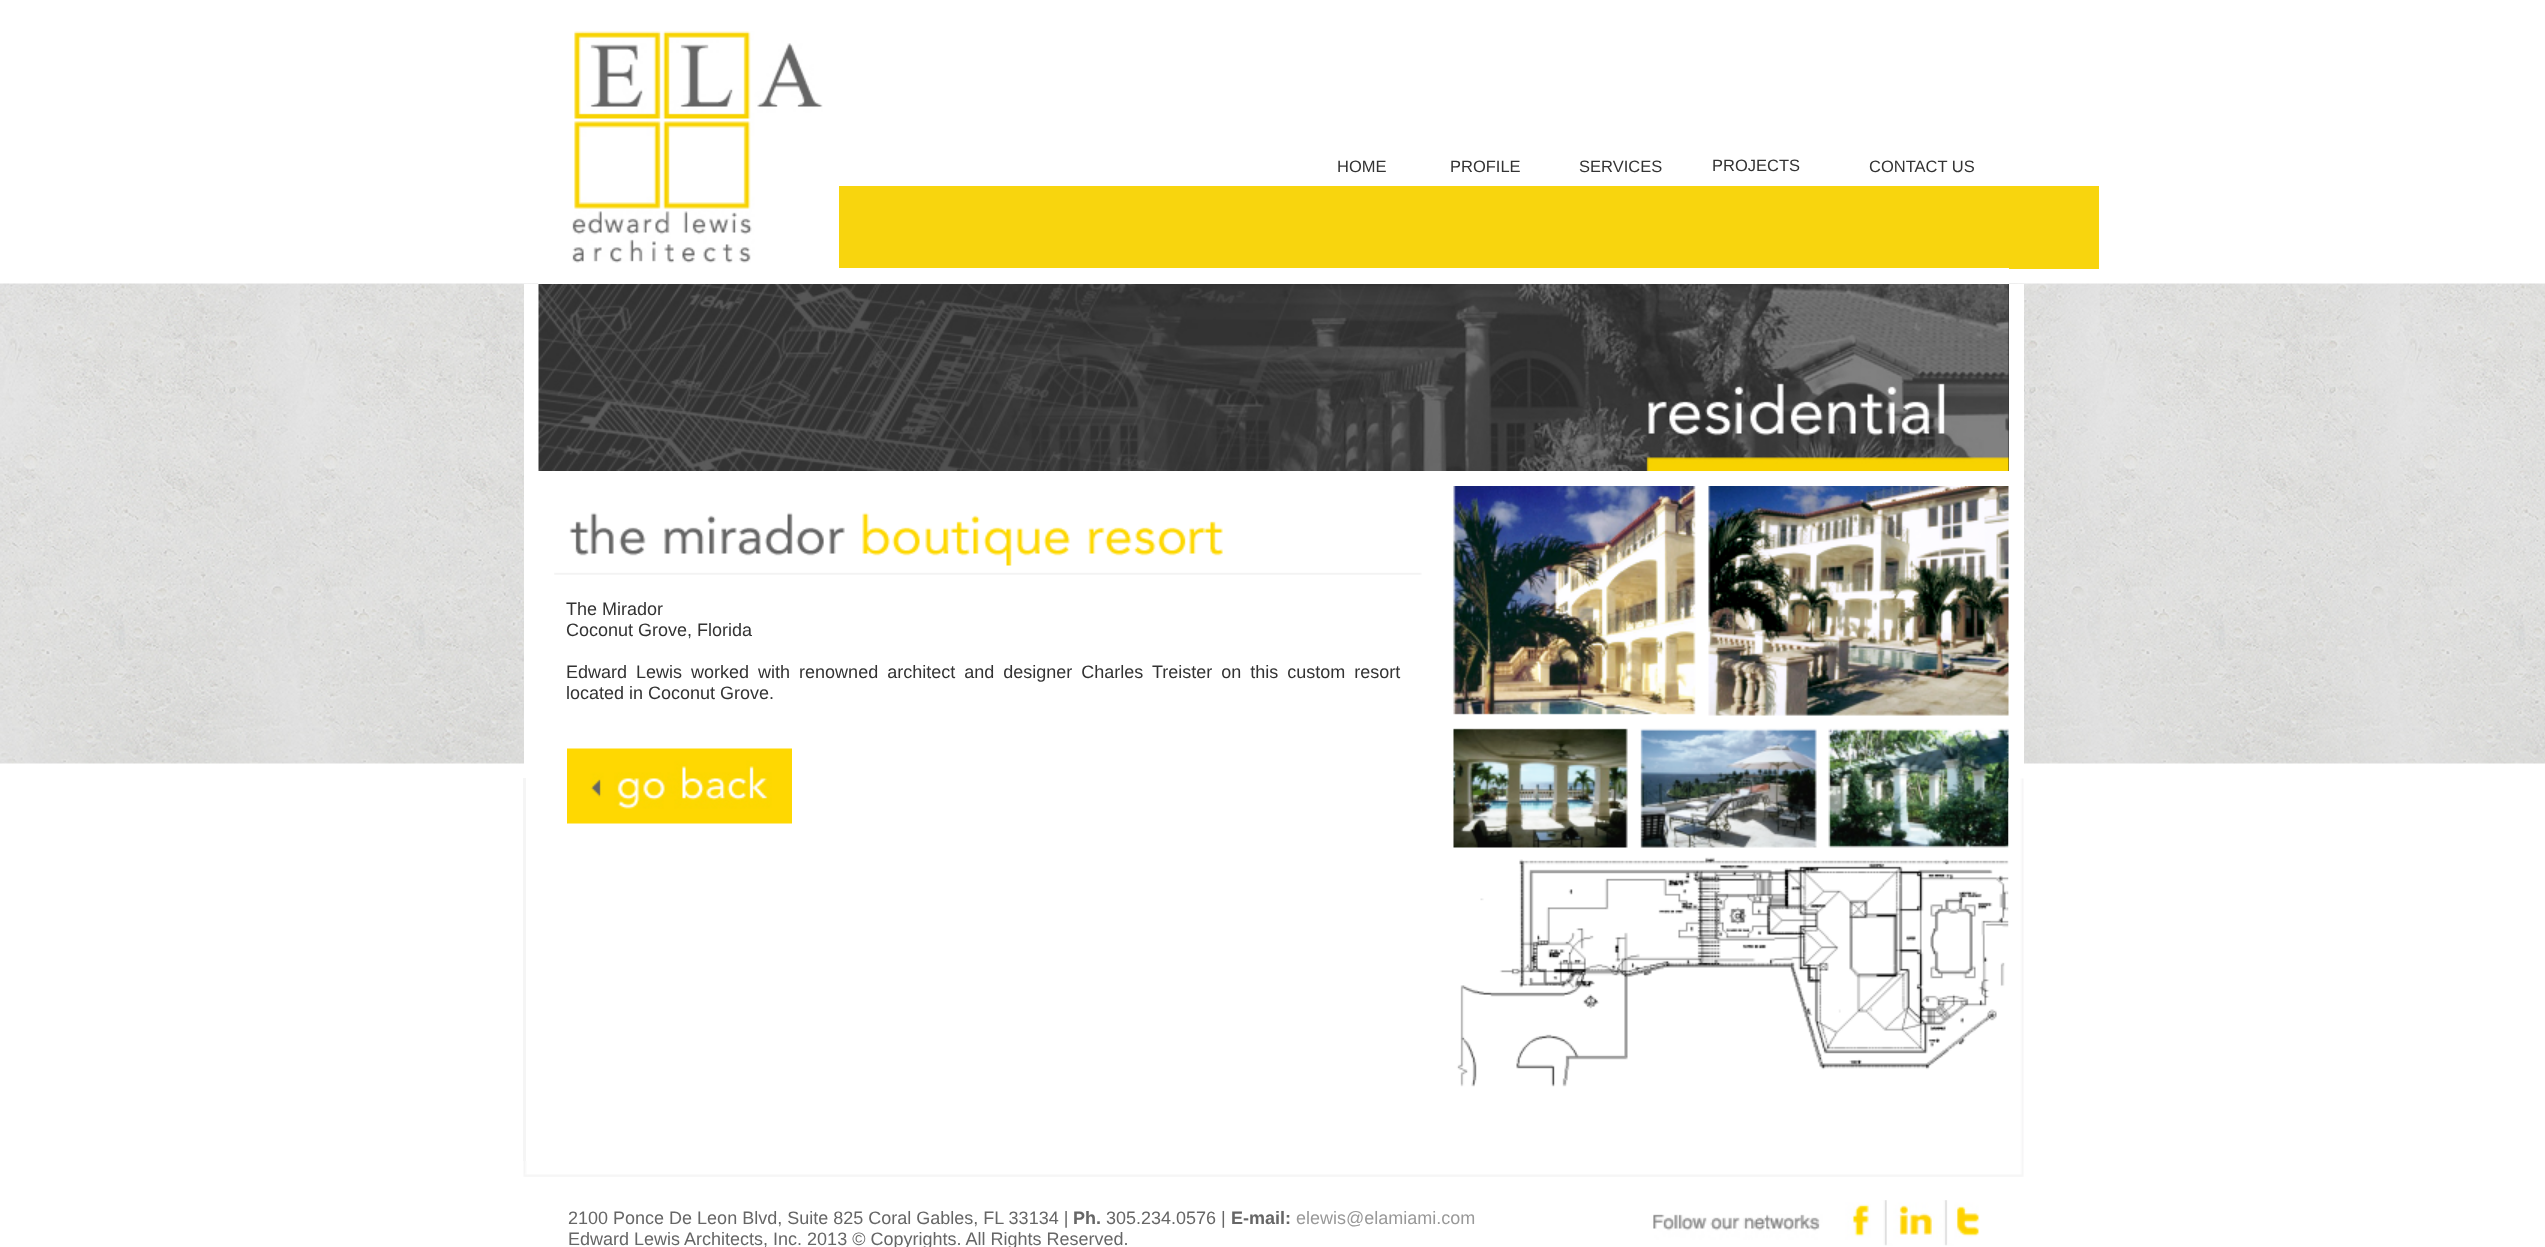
(async () => {
    const canvas = document.querySelector("canvas");
    canvas.width = 2545;
    canvas.height = 1247;
    const context = canvas.getContext("2d");
    context.miterLimit = 4;
    context.fontKerning = "normal";
    function write(s, x, y, font, color) {
        context.font = font;
        context.fillStyle = color;
        context.fillText(s, x, y);
    }
    function block(x, y, w, h, color) {
        context.fillStyle = color;
        context.fillRect(x, y, w, h);
    }
    async function photo(src, x, y, w, h) {
        const img = new Image();
        img.src = src;
        await img.decode();
        context.drawImage(img, x, y, w, h);
    }

    block(0, 0, 2545, 1247, "rgb(255, 255, 255)");
    await photo("media/1.png", 0, 283, 2545, 481);
    await photo("media/2.png", 572, 31, 251, 232);
    block(2009, 186, 90, 83, "rgb(248, 213, 14)");
    write("HOME", 1337, 172, "16.5px Liberation Sans", "rgb(51, 51, 51)");
    write("PROFILE", 1450, 172, "16.5px Liberation Sans", "rgb(51, 51, 51)");
    write("SERVICES", 1579, 172, "16.5px Liberation Sans", "rgb(51, 51, 51)");
    write("PROJECTS", 1712, 171, "16.5px Liberation Sans", "rgb(51, 51, 51)");
    write("CONTACT US", 1869, 172, "16.5px Liberation Sans", "rgb(51, 51, 51)");
    block(839, 186, 1170, 82, "rgb(248, 213, 14)");
    block(538, 283, 1471, 1, "rgb(255, 255, 255)");
    block(524, 284, 1500, 202, "rgb(255, 255, 255)");
    block(2008, 284, 1, 187, "rgb(51, 51, 51)");
    await photo("media/3.png", 538, 284, 1471, 187);
    block(524, 486, 1500, 278, "rgb(255, 255, 255)");
    block(523, 778, 3, 383, "rgb(245, 245, 245)");
    await photo("media/4.png", 554, 512, 868, 63);
    write("The Mirador", 566, 615, "18px Liberation Sans", "rgb(51, 51, 51)");
    write("Coconut Grove, Florida", 566, 636, "18px Liberation Sans", "rgb(51, 51, 51)");
    context.wordSpacing = "4px";
    write("Edward Lewis worked with renowned architect and designer Charles Treister on this custom resort", 566, 678, "18px Liberation Sans", "rgb(51, 51, 51)");
    context.wordSpacing = "0px";
    write("located in Coconut Grove.", 566, 699, "18px Liberation Sans", "rgb(51, 51, 51)");
    await photo("media/5.png", 567, 748, 225, 76);
    await photo("media/6.png", 1453, 486, 556, 601);
    await photo("media/7.png", 2008, 778, 16, 383);
    await photo("media/8.png", 523, 1161, 1501, 16);
    write("2100 Ponce De Leon Blvd, Suite 825 Coral Gables, FL 33134 |", 568, 1224, "18px Liberation Sans", "rgb(102, 102, 102)");
    write("Ph.", 1073, 1224, "bold 18px Liberation Sans", "rgb(102, 102, 102)");
    write("305.234.0576 |", 1106, 1224, "18px Liberation Sans", "rgb(102, 102, 102)");
    write("E-mail:", 1231, 1224, "bold 18px Liberation Sans", "rgb(102, 102, 102)");
    write("elewis@elamiami.com", 1296, 1224, "18px Liberation Sans", "rgb(153, 153, 153)");
    write("Edward Lewis Architects, Inc. 2013 © Copyrights. All Rights Reserved.", 568, 1245, "18px Liberation Sans", "rgb(102, 102, 102)");
    await photo("media/9.png", 1653, 1200, 327, 46);
})();
